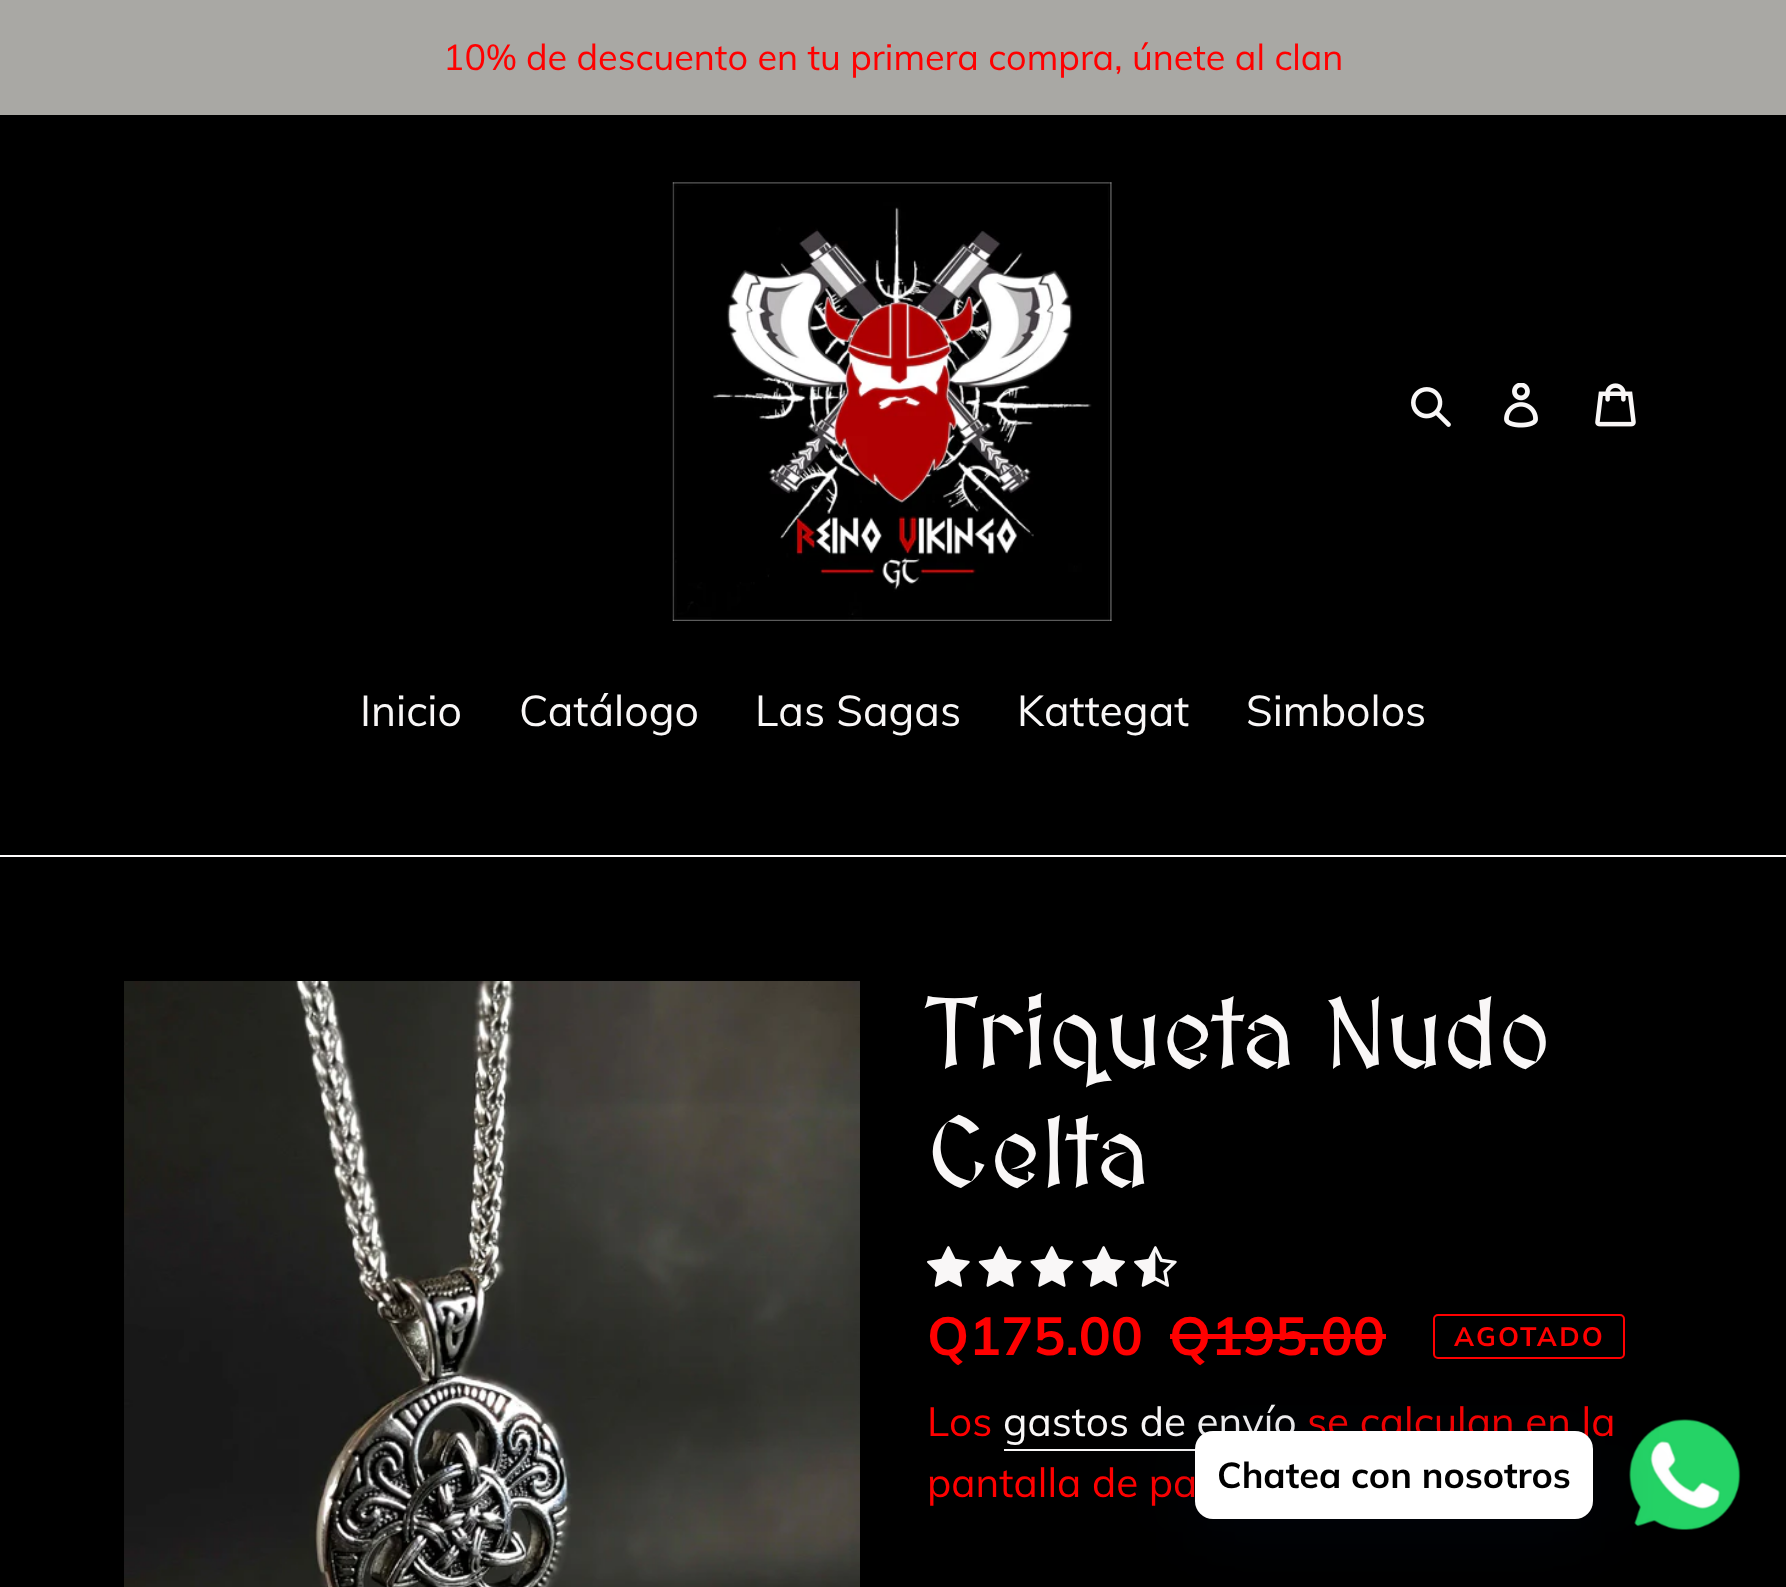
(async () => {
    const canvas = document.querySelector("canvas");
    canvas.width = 1786;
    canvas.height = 1587;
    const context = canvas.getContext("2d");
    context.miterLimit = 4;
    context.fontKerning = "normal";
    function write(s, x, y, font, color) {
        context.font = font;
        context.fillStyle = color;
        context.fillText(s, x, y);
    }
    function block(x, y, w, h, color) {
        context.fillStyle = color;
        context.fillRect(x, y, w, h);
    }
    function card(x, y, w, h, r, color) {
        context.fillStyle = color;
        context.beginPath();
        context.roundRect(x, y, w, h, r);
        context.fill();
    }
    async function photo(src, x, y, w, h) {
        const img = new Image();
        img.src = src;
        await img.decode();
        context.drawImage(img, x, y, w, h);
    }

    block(0, 0, 1786, 1587, "rgb(0, 0, 0)");
    block(0, 0, 1786, 115, "rgb(169, 168, 164)");
    write("10% de descuento en tu primera compra, únete al clan", 443, 70, "36px Muli", "rgb(255, 0, 0)");
    await photo("media/1.png", 672, 182, 440, 439);
    await photo("media/2.png", 1411, 387, 40, 40);
    await photo("media/3.png", 1504, 383, 34, 45);
    await photo("media/4.png", 1595, 383, 41, 44);
    block(0, 855, 1786, 2, "rgb(255, 253, 253)");
    write("Inicio", 360, 726, "42.75px Muli", "rgb(249, 247, 247)");
    write("Catálogo", 519, 726, "42.75px Muli", "rgb(249, 247, 247)");
    write("Las Sagas", 755, 726, "42.75px Muli", "rgb(249, 247, 247)");
    write("Kattegat", 1017, 726, "42.75px Muli", "rgb(249, 247, 247)");
    write("Simbolos", 1246, 726, "42.75px Muli", "rgb(249, 247, 247)");
    await photo("media/5.png", 124, 981, 736, 606);
    write("Triqueta Nudo", 927, 1069, "500 99px MedievalSharp", "rgb(249, 247, 247)");
    write("Celta", 927, 1188, "500 99px MedievalSharp", "rgb(249, 247, 247)");
    await photo("media/6.png", 927, 1246, 43, 41);
    await photo("media/7.png", 978, 1246, 44, 41);
    await photo("media/8.png", 1030, 1246, 44, 41);
    await photo("media/9.png", 1082, 1246, 43, 41);
    await photo("media/10.png", 1134, 1246, 43, 41);
    write("Q175.00", 927, 1355, "bold 53.5px Muli", "rgb(255, 0, 0)");
    write("Q195.00", 1169, 1355, "bold 53.5px Muli", "rgb(255, 0, 0)");
    block(1170, 1334, 216, 5, "rgb(255, 0, 0)");
    context.beginPath();
    context.roundRect(1434, 1315, 190, 43, 4);
    context.strokeStyle = "rgb(255, 0, 0)";
    context.lineWidth = 2;
    context.stroke();
    context.letterSpacing = "2.25px";
    write("AGOTADO", 1454, 1346, "bold 26.75px Muli", "rgb(255, 0, 0)");
    context.letterSpacing = "0px";
    write("Los", 927, 1436, "40.5px Muli", "rgb(255, 0, 0)");
    write("gastos de envío", 1003, 1436, "40.5px Muli", "rgb(249, 247, 247)");
    block(1004, 1449, 191, 2, "rgb(249, 247, 247)");
    write("se calculan en la", 1307, 1436, "40.5px Muli", "rgb(255, 0, 0)");
    write("pantalla de pa", 927, 1497, "40.5px Muli", "rgb(255, 0, 0)");
    await photo("media/11.png", 1629, 1419, 112, 111);
    context.fillStyle = "rgba(0, 18, 46, 0.24)";
    context.filter = "blur(36px)";
    context.beginPath();
    context.roundRect(1195, 1445, 398, 87, 18);
    context.fill();
    context.filter = "none";
    card(1195, 1431, 398, 88, 18, "rgb(255, 255, 255)");
    write("Chatea con nosotros", 1217, 1488, "bold 36px Muli", "rgb(0, 0, 0)");
})();
